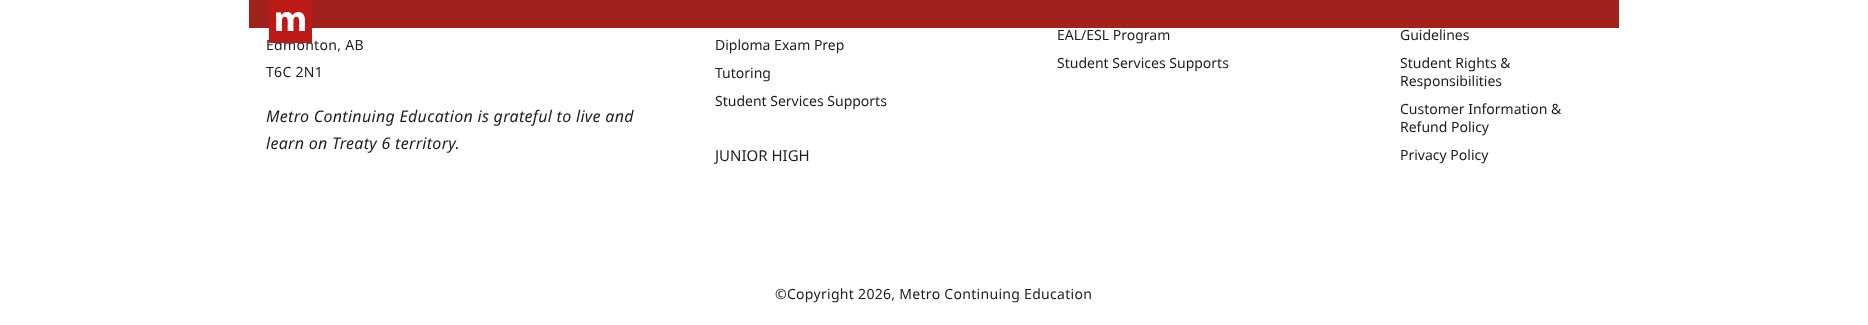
(async () => {
    const canvas = document.querySelector("canvas");
    canvas.width = 1868;
    canvas.height = 325;
    const context = canvas.getContext("2d");
    context.miterLimit = 4;
    context.fontKerning = "normal";
    function write(s, x, y, font, color) {
        context.font = font;
        context.fillStyle = color;
        context.fillText(s, x, y);
    }
    function block(x, y, w, h, color) {
        context.fillStyle = color;
        context.fillRect(x, y, w, h);
    }
    async function photo(src, x, y, w, h) {
        const img = new Image();
        img.src = src;
        await img.decode();
        context.drawImage(img, x, y, w, h);
    }

    block(0, 0, 1868, 325, "rgb(255, 255, 255)");
    block(249, 0, 1370, 28, "rgb(161, 34, 29)");
    context.letterSpacing = "0.3px";
    write("Edmonton, AB", 266, 50, "14px Noto Sans", "rgb(29, 29, 29)");
    block(269, 0, 43, 43, "rgb(186, 27, 22)");
    await photo("media/1.png", 276, 12, 29, 19);
    write("T6C 2N1", 266, 77, "14px Noto Sans", "rgb(29, 29, 29)");
    write("Metro Continuing Education is grateful to live and", 266, 122, "italic 16px Noto Sans", "rgb(29, 29, 29)");
    write("learn on Treaty 6 territory.", 266, 149, "italic 16px Noto Sans", "rgb(29, 29, 29)");
    context.letterSpacing = "0px";
    write("Diploma Exam Prep", 715, 50, "14px Noto Sans", "rgb(29, 29, 29)");
    write("Tutoring", 715, 78, "14px Noto Sans", "rgb(29, 29, 29)");
    write("Student Services Supports", 715, 106, "14px Noto Sans", "rgb(29, 29, 29)");
    write("JUNIOR HIGH", 715, 161, "15px Noto Sans", "rgb(29, 29, 29)");
    write("EAL/ESL Program", 1057, 40, "14px Noto Sans", "rgb(29, 29, 29)");
    write("Student Services Supports", 1057, 68, "14px Noto Sans", "rgb(29, 29, 29)");
    write("Guidelines", 1400, 40, "14px Noto Sans", "rgb(29, 29, 29)");
    write("Student Rights &", 1400, 68, "14px Noto Sans", "rgb(29, 29, 29)");
    write("Responsibilities", 1400, 86, "14px Noto Sans", "rgb(29, 29, 29)");
    write("Customer Information &", 1400, 114, "14px Noto Sans", "rgb(29, 29, 29)");
    write("Refund Policy", 1400, 132, "14px Noto Sans", "rgb(29, 29, 29)");
    write("Privacy Policy", 1400, 160, "14px Noto Sans", "rgb(29, 29, 29)");
    context.letterSpacing = "0.3px";
    write("©Copyright 2026, Metro Continuing Education", 775, 299, "14px Noto Sans", "rgb(29, 29, 29)");
})();
